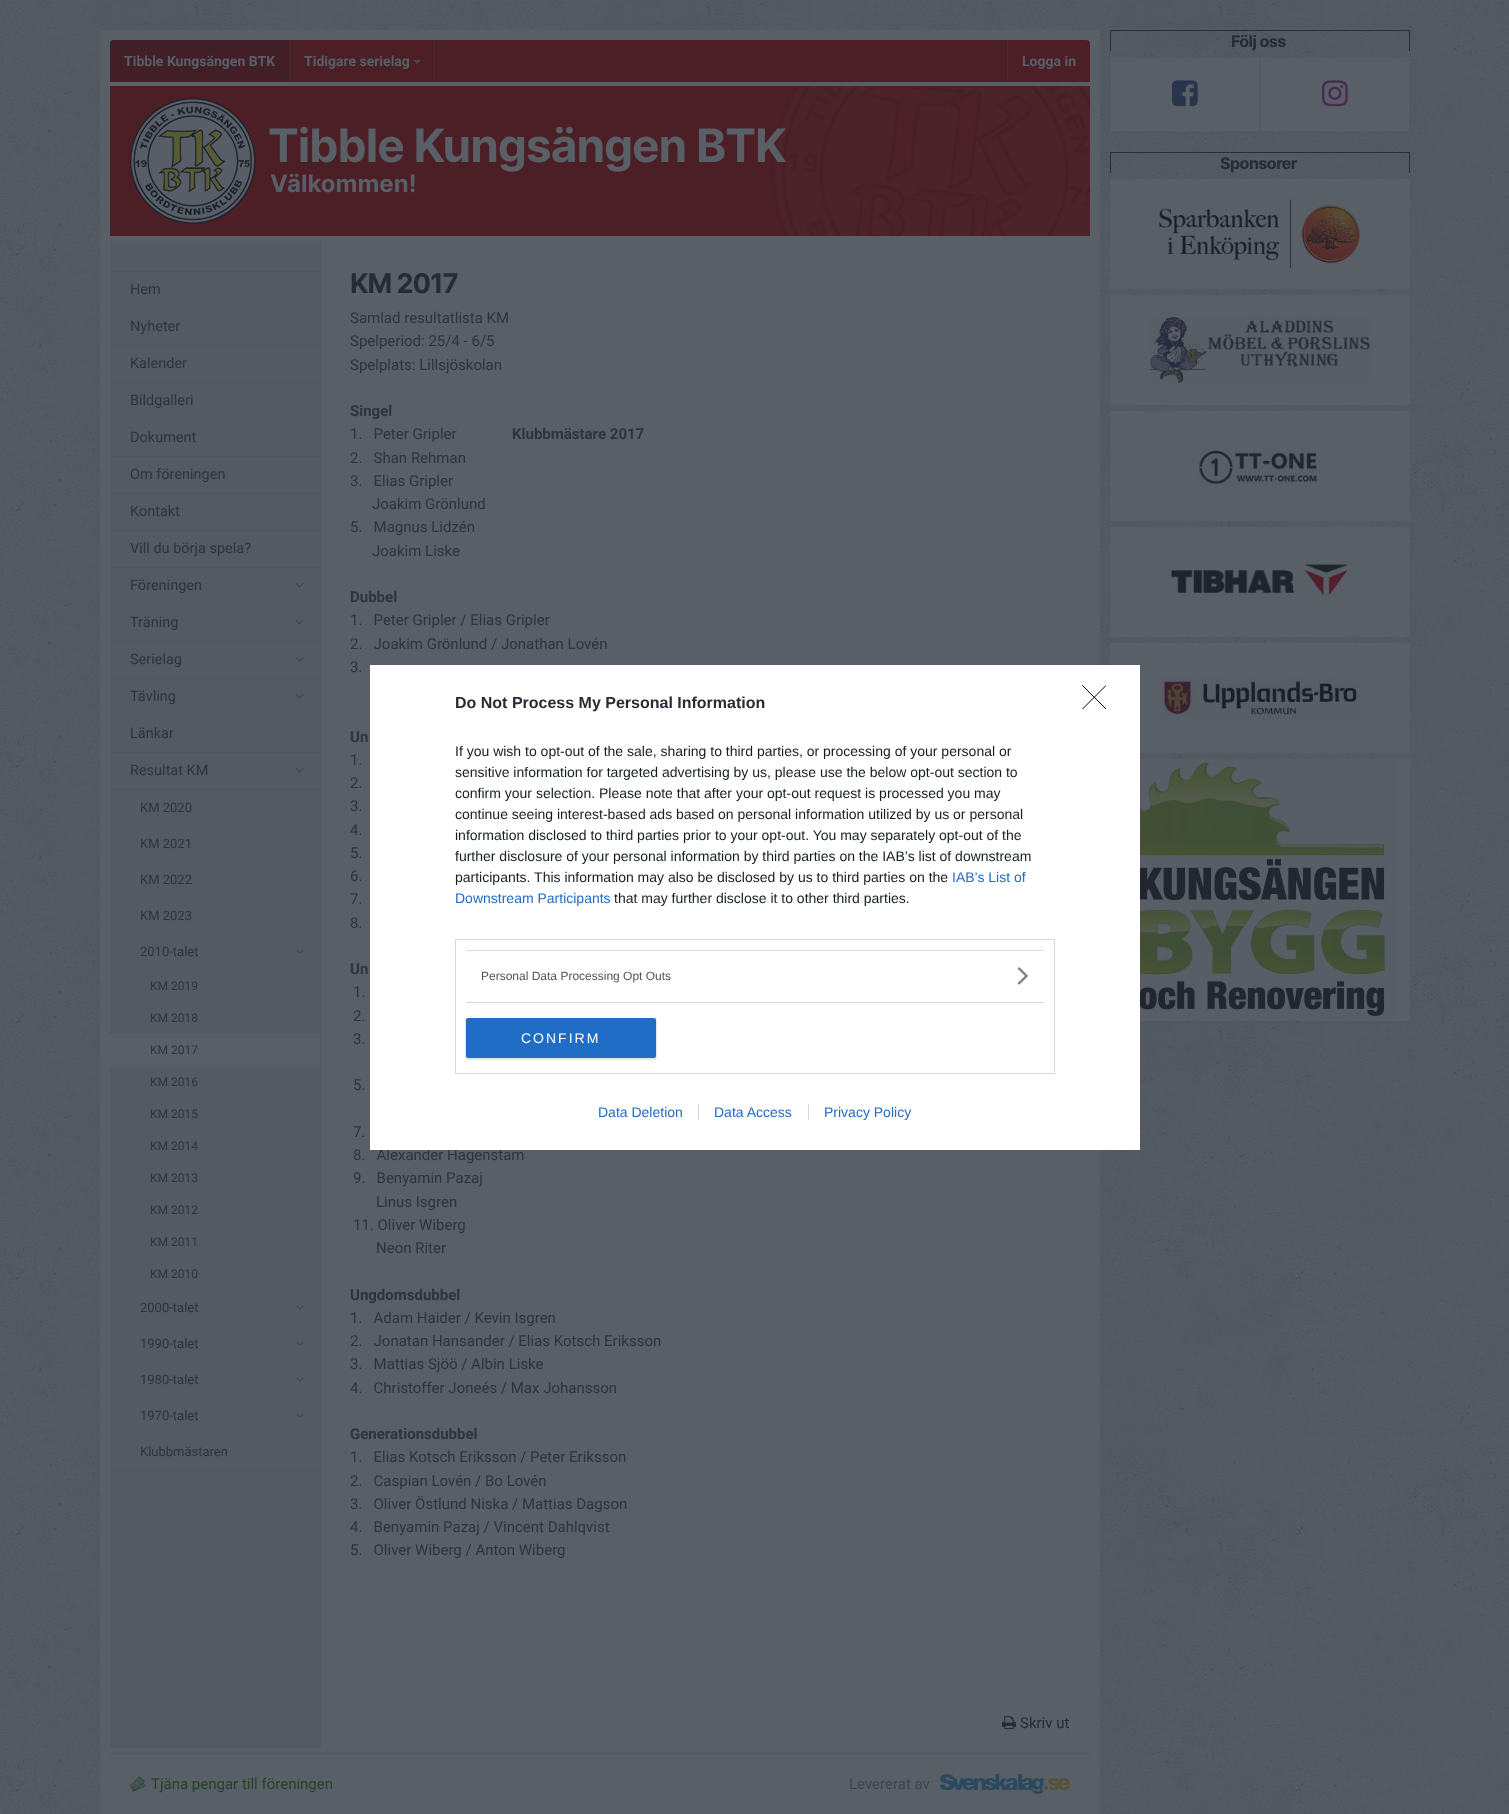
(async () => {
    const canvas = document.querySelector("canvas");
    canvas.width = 1509;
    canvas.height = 1814;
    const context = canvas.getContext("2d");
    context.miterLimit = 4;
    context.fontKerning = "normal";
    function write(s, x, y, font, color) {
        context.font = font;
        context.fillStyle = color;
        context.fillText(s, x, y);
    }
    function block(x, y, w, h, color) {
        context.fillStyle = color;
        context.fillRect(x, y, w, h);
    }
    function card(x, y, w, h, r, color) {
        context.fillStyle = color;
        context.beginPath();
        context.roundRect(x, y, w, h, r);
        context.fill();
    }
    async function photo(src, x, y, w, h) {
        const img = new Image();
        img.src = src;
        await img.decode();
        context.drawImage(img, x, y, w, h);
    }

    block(0, 0, 1509, 1814, "rgb(255, 255, 255)");
    await photo("media/1.png", 0, 0, 1509, 1814);
    context.fillStyle = "rgb(89, 95, 103)";
    context.beginPath();
    context.roundRect(100, 30, 1000, 1784, [5, 5, 0, 0]);
    context.fill();
    context.fillStyle = "rgb(76, 31, 39)";
    context.beginPath();
    context.roundRect(110, 40, 980, 42, [4, 4, 0, 0]);
    context.fill();
    block(433, 40, 1, 42, "rgb(77, 37, 46)");
    context.fillStyle = "rgb(66, 31, 39)";
    context.beginPath();
    context.roundRect(110, 40, 179, 42, [4, 0, 0, 0]);
    context.fill();
    block(288, 40, 1, 42, "rgb(57, 31, 39)");
    write("Tibble Kungsängen BTK", 124, 66, "bold 14px Roboto", "rgb(89, 95, 103)");
    block(432, 40, 1, 42, "rgb(66, 31, 39)");
    block(289, 40, 1, 42, "rgb(77, 37, 46)");
    write("Tidigare serielag", 304, 66, "bold 14px Roboto", "rgb(89, 95, 103)");
    context.fillStyle = "rgb(84, 69, 77)";
    context.beginPath();
    context.moveTo(413, 60);
    context.lineTo(421, 60);
    context.lineTo(417, 64);
    context.closePath();
    context.fill();
    block(1006, 40, 1, 42, "rgb(66, 31, 39)");
    block(1007, 40, 1, 42, "rgb(77, 37, 46)");
    write("Logga in", 1022, 66, "bold 14px Roboto", "rgb(89, 95, 103)");
    block(110, 86, 980, 150, "rgb(76, 31, 39)");
    await photo("media/2.png", 130, 86, 960, 150);
    context.letterSpacing = "-1px";
    write("Tibble Kungsängen BTK", 268, 162, "bold 46px Inter", "rgb(89, 95, 103)");
    context.letterSpacing = "0px";
    write("Välkommen!", 270, 192, "bold 24px Inter", "rgb(89, 95, 103)");
    block(110, 241, 211, 1507, "rgb(84, 90, 99)");
    block(110, 271, 210, 1, "rgb(80, 86, 94)");
    block(110, 308, 210, 1, "rgb(80, 86, 94)");
    write("Hem", 130, 294, "14.5px Roboto", "rgb(46, 52, 60)");
    block(110, 345, 210, 1, "rgb(80, 86, 94)");
    write("Nyheter", 130, 331, "14.5px Roboto", "rgb(46, 52, 60)");
    block(110, 382, 210, 1, "rgb(80, 86, 94)");
    write("Kalender", 130, 368, "14.5px Roboto", "rgb(46, 52, 60)");
    block(110, 419, 210, 1, "rgb(80, 86, 94)");
    write("Bildgalleri", 130, 405, "14.5px Roboto", "rgb(46, 52, 60)");
    block(110, 456, 210, 1, "rgb(80, 86, 94)");
    write("Dokument", 130, 442, "14.5px Roboto", "rgb(46, 52, 60)");
    block(110, 493, 210, 1, "rgb(80, 86, 94)");
    write("Om föreningen", 130, 479, "14.5px Roboto", "rgb(46, 52, 60)");
    block(110, 530, 210, 1, "rgb(80, 86, 94)");
    write("Kontakt", 130, 516, "14.5px Roboto", "rgb(46, 52, 60)");
    block(110, 567, 210, 1, "rgb(80, 86, 94)");
    write("Vill du börja spela?", 130, 553, "14.5px Roboto", "rgb(46, 52, 60)");
    block(110, 604, 210, 1, "rgb(80, 86, 94)");
    write("Föreningen", 130, 590, "14.5px Roboto", "rgb(46, 52, 60)");
    await photo("media/3.png", 295, 583, 9, 5);
    block(110, 641, 210, 1, "rgb(80, 86, 94)");
    write("Träning", 130, 627, "14.5px Roboto", "rgb(46, 52, 60)");
    await photo("media/3.png", 295, 620, 9, 5);
    block(110, 678, 210, 1, "rgb(80, 86, 94)");
    write("Serielag", 130, 664, "14.5px Roboto", "rgb(46, 52, 60)");
    await photo("media/3.png", 295, 657, 9, 5);
    block(110, 715, 210, 1, "rgb(80, 86, 94)");
    write("Tävling", 130, 701, "14.5px Roboto", "rgb(46, 52, 60)");
    await photo("media/3.png", 295, 694, 9, 5);
    block(110, 752, 210, 1, "rgb(80, 86, 94)");
    write("Länkar", 130, 738, "14.5px Roboto", "rgb(46, 52, 60)");
    block(110, 789, 210, 1, "rgb(80, 86, 94)");
    write("Resultat KM", 130, 775, "14.5px Roboto", "rgb(46, 52, 60)");
    await photo("media/3.png", 295, 768, 9, 5);
    block(110, 1470, 210, 1, "rgb(80, 86, 94)");
    write("KM 2020", 140, 812, "13px Roboto", "rgb(46, 52, 60)");
    write("KM 2021", 140, 848, "13px Roboto", "rgb(46, 52, 60)");
    write("KM 2022", 140, 884, "13px Roboto", "rgb(46, 52, 60)");
    write("KM 2023", 140, 920, "13px Roboto", "rgb(46, 52, 60)");
    write("2010-talet", 140, 956, "13px Roboto", "rgb(46, 52, 60)");
    await photo("media/4.png", 296, 949, 8, 5);
    write("KM 2019", 150, 990, "12px Roboto", "rgb(46, 52, 60)");
    write("KM 2018", 150, 1022, "12px Roboto", "rgb(46, 52, 60)");
    block(110, 1034, 210, 32, "rgb(89, 95, 103)");
    write("KM 2017", 150, 1054, "12px Roboto", "rgb(46, 52, 60)");
    write("KM 2016", 150, 1086, "12px Roboto", "rgb(46, 52, 60)");
    write("KM 2015", 150, 1118, "12px Roboto", "rgb(46, 52, 60)");
    write("KM 2014", 150, 1150, "12px Roboto", "rgb(46, 52, 60)");
    write("KM 2013", 150, 1182, "12px Roboto", "rgb(46, 52, 60)");
    write("KM 2012", 150, 1214, "12px Roboto", "rgb(46, 52, 60)");
    write("KM 2011", 150, 1246, "12px Roboto", "rgb(46, 52, 60)");
    write("KM 2010", 150, 1278, "12px Roboto", "rgb(46, 52, 60)");
    write("2000-talet", 140, 1312, "13px Roboto", "rgb(46, 52, 60)");
    await photo("media/4.png", 296, 1305, 8, 5);
    write("1990-talet", 140, 1348, "13px Roboto", "rgb(46, 52, 60)");
    await photo("media/4.png", 296, 1341, 8, 5);
    write("1980-talet", 140, 1384, "13px Roboto", "rgb(46, 52, 60)");
    await photo("media/4.png", 296, 1377, 8, 5);
    write("1970-talet", 140, 1420, "13px Roboto", "rgb(46, 52, 60)");
    await photo("media/4.png", 296, 1413, 8, 5);
    write("Klubbmästaren", 140, 1456, "13px Roboto", "rgb(46, 52, 60)");
    context.letterSpacing = "-1px";
    write("KM 2017", 350, 293, "bold 27px Inter", "rgb(38, 44, 52)");
    context.letterSpacing = "0px";
    write("Samlad resultatlista KM", 350, 323, "15px Roboto", "rgb(46, 52, 60)");
    write("Spelperiod: 25/4 - 6/5", 350, 346, "15px Roboto", "rgb(46, 52, 60)");
    write("Spelplats: Lillsjöskolan", 350, 370, "15px Roboto", "rgb(46, 52, 60)");
    write("Singel", 350, 416, "bold 15px Roboto", "rgb(46, 52, 60)");
    write("1.   Peter Gripler", 350, 439, "15px Roboto", "rgb(46, 52, 60)");
    write("Klubbmästare 2017", 512, 439, "bold 15px Roboto", "rgb(46, 52, 60)");
    write("2.   Shan Rehman", 350, 463, "15px Roboto", "rgb(46, 52, 60)");
    write("3.   Elias Gripler", 350, 486, "15px Roboto", "rgb(46, 52, 60)");
    write("Joakim Grönlund", 372, 509, "15px Roboto", "rgb(46, 52, 60)");
    write("5.   Magnus Lidzén", 350, 532, "15px Roboto", "rgb(46, 52, 60)");
    write("Joakim Liske", 372, 556, "15px Roboto", "rgb(46, 52, 60)");
    write("Dubbel", 350, 602, "bold 15px Roboto", "rgb(46, 52, 60)");
    write("1.   Peter Gripler / Elias Gripler", 350, 625, "15px Roboto", "rgb(46, 52, 60)");
    write("2.   Joakim Grönlund / Jonathan Lovén", 350, 649, "15px Roboto", "rgb(46, 52, 60)");
    write("3.", 350, 672, "15px Roboto", "rgb(46, 52, 60)");
    write("Un", 350, 742, "bold 15px Roboto", "rgb(46, 52, 60)");
    write("1.", 350, 765, "15px Roboto", "rgb(46, 52, 60)");
    write("2.", 350, 788, "15px Roboto", "rgb(46, 52, 60)");
    write("3.", 350, 811, "15px Roboto", "rgb(46, 52, 60)");
    write("4.", 350, 835, "15px Roboto", "rgb(46, 52, 60)");
    write("5.", 350, 858, "15px Roboto", "rgb(46, 52, 60)");
    write("6.", 350, 881, "15px Roboto", "rgb(46, 52, 60)");
    write("7.", 350, 904, "15px Roboto", "rgb(46, 52, 60)");
    write("8.", 350, 928, "15px Roboto", "rgb(46, 52, 60)");
    write("Un", 350, 974, "bold 15px Roboto", "rgb(46, 52, 60)");
    write("1.", 353, 997, "15px Roboto", "rgb(46, 52, 60)");
    write("2.", 353, 1021, "15px Roboto", "rgb(46, 52, 60)");
    write("3.", 353, 1044, "15px Roboto", "rgb(46, 52, 60)");
    write("5.", 353, 1090, "15px Roboto", "rgb(46, 52, 60)");
    write("7.", 353, 1137, "15px Roboto", "rgb(46, 52, 60)");
    write("8.   Alexander Hagenstam", 353, 1160, "15px Roboto", "rgb(46, 52, 60)");
    write("9.   Benyamin Pazaj", 353, 1183, "15px Roboto", "rgb(46, 52, 60)");
    write("Linus Isgren", 376, 1207, "15px Roboto", "rgb(46, 52, 60)");
    write("11. Oliver Wiberg", 353, 1230, "15px Roboto", "rgb(46, 52, 60)");
    write("Neon Riter", 376, 1253, "15px Roboto", "rgb(46, 52, 60)");
    write("Ungdomsdubbel", 350, 1300, "bold 15px Roboto", "rgb(46, 52, 60)");
    write("1.   Adam Haider / Kevin Isgren", 350, 1323, "15px Roboto", "rgb(46, 52, 60)");
    write("2.   Jonatan Hansander / Elias Kotsch Eriksson", 350, 1346, "15px Roboto", "rgb(46, 52, 60)");
    write("3.   Mattias Sjöö / Albin Liske", 350, 1369, "15px Roboto", "rgb(46, 52, 60)");
    write("4.   Christoffer Joneés / Max Johansson", 350, 1393, "15px Roboto", "rgb(46, 52, 60)");
    write("Generationsdubbel", 350, 1439, "bold 15px Roboto", "rgb(46, 52, 60)");
    write("1.   Elias Kotsch Eriksson / Peter Eriksson", 350, 1462, "15px Roboto", "rgb(46, 52, 60)");
    write("2.   Caspian Lovén / Bo Lovén", 350, 1486, "15px Roboto", "rgb(46, 52, 60)");
    write("3.   Oliver Östlund Niska / Mattias Dagson", 350, 1509, "15px Roboto", "rgb(46, 52, 60)");
    write("4.   Benyamin Pazaj / Vincent Dahlqvist", 350, 1532, "15px Roboto", "rgb(46, 52, 60)");
    write("5.   Oliver Wiberg / Anton Wiberg", 350, 1555, "15px Roboto", "rgb(46, 52, 60)");
    await photo("media/5.png", 1002, 1716, 14, 14);
    write("Skriv ut", 1020, 1728, "15px Roboto", "rgb(38, 44, 52)");
    block(110, 1753, 980, 1, "rgb(80, 86, 94)");
    await photo("media/6.png", 130, 1776, 16, 16);
    write("Tjäna pengar till föreningen", 151, 1789, "15px Roboto", "rgb(36, 65, 39)");
    write("Levererat av", 849, 1789, "15px Roboto", "rgb(63, 69, 77)");
    await photo("media/7.png", 940, 1774, 130, 20);
    context.fillStyle = "rgba(25, 31, 39, 0.71)";
    context.beginPath();
    context.moveTo(1110, 30);
    context.lineTo(1410, 30);
    context.lineTo(1409, 31);
    context.lineTo(1111, 31);
    context.closePath();
    context.fill();
    context.beginPath();
    context.moveTo(1410, 30);
    context.lineTo(1410, 51);
    context.lineTo(1409, 51);
    context.lineTo(1409, 31);
    context.closePath();
    context.fill();
    context.beginPath();
    context.moveTo(1110, 51);
    context.lineTo(1110, 30);
    context.lineTo(1111, 31);
    context.lineTo(1111, 51);
    context.closePath();
    context.fill();
    context.letterSpacing = "-0.5px";
    write("Följ oss", 1231, 47, "bold 16px Inter", "rgb(38, 44, 52)");
    context.fillStyle = "rgb(89, 95, 103)";
    context.beginPath();
    context.rect(1110.5, 57.5, 149, 74);
    context.fill();
    context.strokeStyle = "rgb(84, 90, 99)";
    context.stroke();
    await photo("media/8.png", 1172, 80, 26, 27);
    context.beginPath();
    context.rect(1260.5, 57.5, 149, 74);
    context.fill();
    context.stroke();
    await photo("media/9.png", 1322, 80, 26, 27);
    context.fillStyle = "rgba(25, 31, 39, 0.71)";
    context.beginPath();
    context.moveTo(1110, 152);
    context.lineTo(1410, 152);
    context.lineTo(1409, 153);
    context.lineTo(1111, 153);
    context.closePath();
    context.fill();
    context.beginPath();
    context.moveTo(1410, 152);
    context.lineTo(1410, 173);
    context.lineTo(1409, 173);
    context.lineTo(1409, 153);
    context.closePath();
    context.fill();
    context.beginPath();
    context.moveTo(1110, 173);
    context.lineTo(1110, 152);
    context.lineTo(1111, 153);
    context.lineTo(1111, 173);
    context.closePath();
    context.fill();
    write("Sponsorer", 1220, 169, "bold 16px Inter", "rgb(38, 44, 52)");
    block(1110, 179, 300, 110, "rgb(89, 95, 103)");
    await photo("media/10.png", 1159, 199, 201, 70);
    block(1110, 295, 300, 110, "rgb(89, 95, 103)");
    await photo("media/11.png", 1150, 317, 220, 66);
    block(1110, 411, 300, 110, "rgb(89, 95, 103)");
    await photo("media/12.png", 1198, 450, 119, 35);
    block(1110, 527, 300, 110, "rgb(89, 95, 103)");
    await photo("media/13.png", 1171, 563, 177, 33);
    block(1110, 643, 300, 110, "rgb(89, 95, 103)");
    await photo("media/14.png", 1161, 678, 200, 42);
    block(1398, 759, 12, 262, "rgb(89, 95, 103)");
    await photo("media/15.png", 1140, 759, 258, 262);
    block(370, 665, 770, 485, "rgb(255, 255, 255)");
    context.letterSpacing = "0px";
    write("Do Not Process My Personal Information", 455, 708, "bold 16px Liberation Sans", "rgb(38, 44, 52)");
    write("If you wish to opt-out of the sale, sharing to third parties, or processing of your personal or", 455, 756, "14px Liberation Sans", "rgb(20, 30, 35)");
    write("sensitive information for targeted advertising by us, please use the below opt-out section to", 455, 777, "14px Liberation Sans", "rgb(20, 30, 35)");
    write("confirm your selection. Please note that after your opt-out request is processed you may", 455, 798, "14px Liberation Sans", "rgb(20, 30, 35)");
    write("continue seeing interest-based ads based on personal information utilized by us or personal", 455, 819, "14px Liberation Sans", "rgb(20, 30, 35)");
    write("information disclosed to third parties prior to your opt-out. You may separately opt-out of the", 455, 840, "14px Liberation Sans", "rgb(20, 30, 35)");
    write("further disclosure of your personal information by third parties on the IAB’s list of downstream", 455, 861, "14px Liberation Sans", "rgb(20, 30, 35)");
    write("participants. This information may also be disclosed by us to third parties on the", 455, 882, "14px Liberation Sans", "rgb(20, 30, 35)");
    write("IAB’s List of", 952, 882, "14px Liberation Sans", "rgb(32, 109, 197)");
    write("Downstream Participants", 455, 903, "14px Liberation Sans", "rgb(32, 109, 197)");
    write("that may further disclose it to other third parties.", 614, 903, "14px Liberation Sans", "rgb(20, 30, 35)");
    context.strokeStyle = "rgb(216, 216, 216)";
    context.strokeRect(455.5, 939.5, 599, 134);
    block(466, 950, 578, 1, "rgb(221, 221, 221)");
    block(466, 1002, 578, 1, "rgb(216, 216, 216)");
    write("Personal Data Processing Opt Outs", 481, 980, "12px Liberation Sans", "rgb(77, 84, 93)");
    await photo("media/16.png", 1017, 967, 11, 18);
    context.fillStyle = "rgba(0, 0, 0, 0.1)";
    context.filter = "blur(0.5px)";
    context.beginPath();
    context.roundRect(465, 1018, 192, 42, 3);
    context.fill();
    context.filter = "none";
    card(466, 1018, 190, 40, 2, "rgb(32, 109, 197)");
    context.letterSpacing = "2px";
    write("CONFIRM", 521, 1043, "14px Liberation Sans", "rgb(255, 255, 255)");
    context.save();
    context.beginPath();
    context.rect(1082, 685, 24, 24);
    context.clip();
    context.beginPath();
    context.moveTo(1082.5, 685.5);
    context.lineTo(1106, 709);
    context.moveTo(1106, 685.5);
    context.lineTo(1082.5, 709);
    context.strokeStyle = "rgb(0, 0, 0)";
    context.lineCap = "round";
    context.lineJoin = "round";
    context.stroke();
    context.restore();
    context.letterSpacing = "0px";
    write("Data Deletion", 598, 1117, "14px Liberation Sans", "rgb(32, 109, 197)");
    write("Data Access", 714, 1117, "14px Liberation Sans", "rgb(32, 109, 197)");
    block(698, 1104, 1, 16, "rgb(216, 216, 216)");
    write("Privacy Policy", 824, 1117, "14px Liberation Sans", "rgb(32, 109, 197)");
    block(808, 1104, 1, 16, "rgb(216, 216, 216)");
})();
